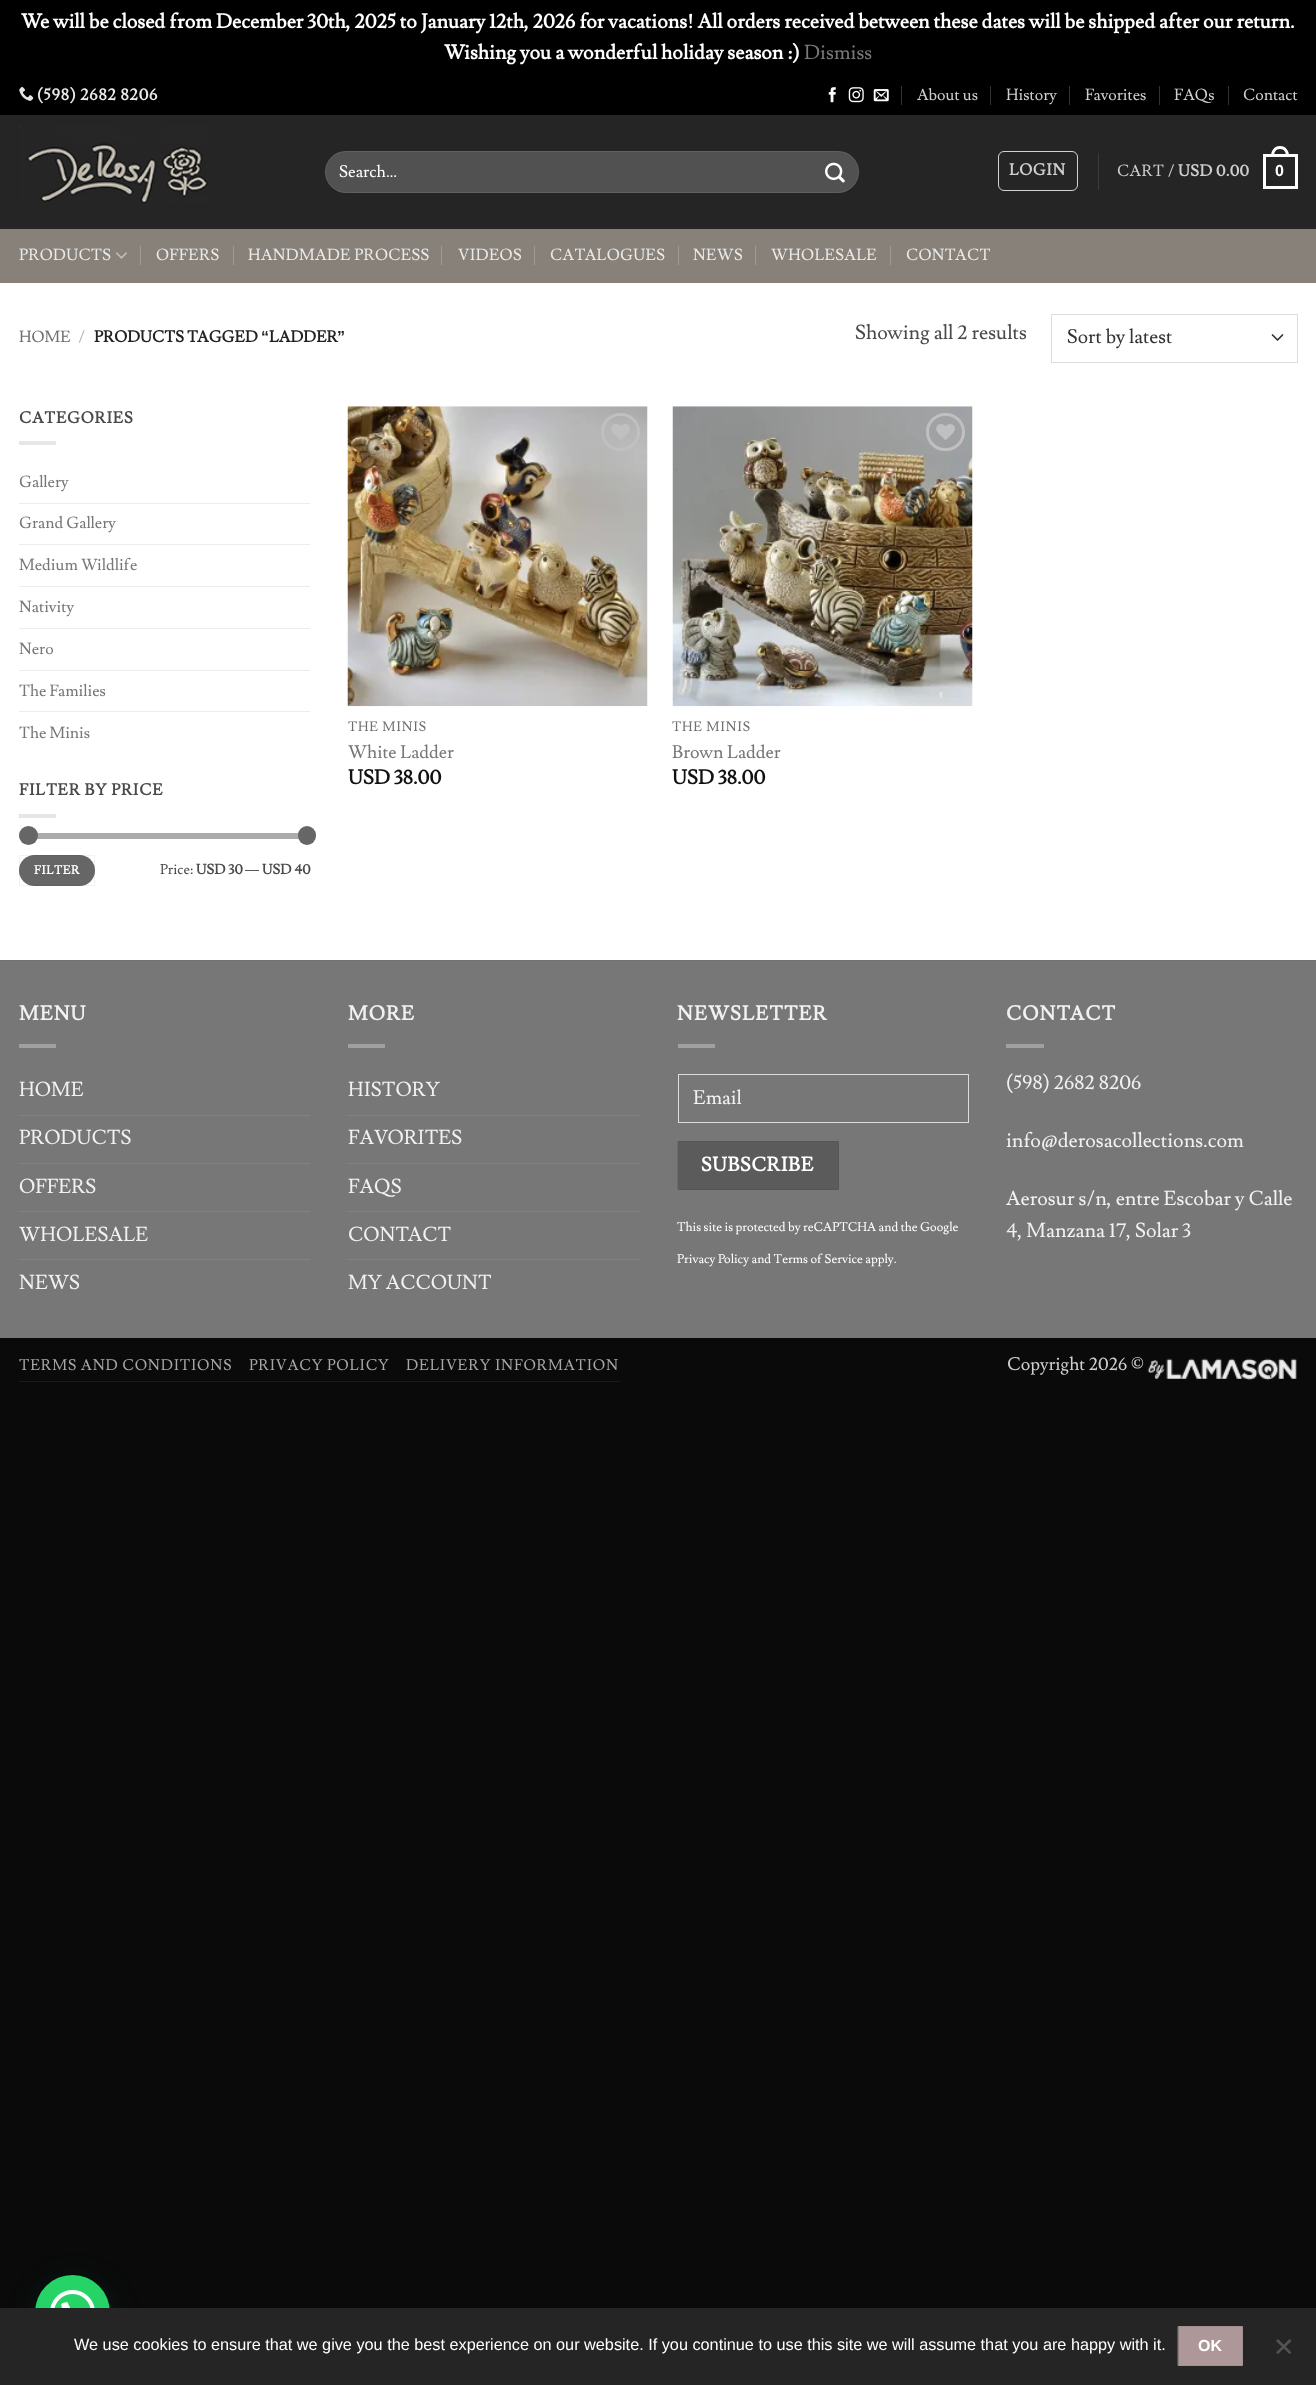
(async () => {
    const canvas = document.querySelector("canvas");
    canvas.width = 1316;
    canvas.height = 2385;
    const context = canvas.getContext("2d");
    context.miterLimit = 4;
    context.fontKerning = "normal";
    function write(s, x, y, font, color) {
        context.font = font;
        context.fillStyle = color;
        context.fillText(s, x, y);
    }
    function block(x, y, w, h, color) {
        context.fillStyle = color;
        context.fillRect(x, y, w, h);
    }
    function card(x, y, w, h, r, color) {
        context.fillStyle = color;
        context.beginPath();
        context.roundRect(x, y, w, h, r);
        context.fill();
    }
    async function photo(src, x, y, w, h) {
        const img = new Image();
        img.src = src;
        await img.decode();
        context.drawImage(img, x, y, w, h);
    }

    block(0, 0, 1316, 2385, "rgb(10, 10, 10)");
    block(0, 0, 1316, 115, "rgb(0, 0, 0)");
    write("We will be closed from December 30th, 2025 to January 12th, 2026 for vacations! All orders received between these dates will be shipped after our return.", 21, 28, "bold 20px Lusitana", "rgb(255, 255, 255)");
    write("Wishing you a wonderful holiday season :)", 444, 59, "bold 20px Lusitana", "rgb(255, 255, 255)");
    write("Dismiss", 804, 59, "20px Lusitana", "rgb(119, 119, 119)");
    block(0, 283, 1316, 677, "rgb(255, 255, 255)");
    await photo("media/1.png", 19, 86, 15, 15);
    context.letterSpacing = "0.75px";
    write("(598) 2682 8206", 37, 100, "bold 16.25px Lusitana", "rgb(234, 234, 234)");
    await photo("media/2.png", 828, 87, 8, 16);
    await photo("media/3.png", 848, 87, 16, 16);
    await photo("media/4.png", 873, 89, 16, 13);
    block(901, 86, 1, 19, "rgb(51, 51, 51)");
    context.letterSpacing = "0px";
    write("About us", 917, 100, "16px Lusitana", "rgb(206, 206, 206)");
    block(990, 86, 1, 19, "rgb(51, 51, 51)");
    write("History", 1006, 100, "16px Lusitana", "rgb(206, 206, 206)");
    block(1069, 86, 1, 19, "rgb(51, 51, 51)");
    write("Favorites", 1085, 100, "16px Lusitana", "rgb(206, 206, 206)");
    block(1159, 86, 1, 19, "rgb(51, 51, 51)");
    write("FAQs", 1174, 100, "16px Lusitana", "rgb(206, 206, 206)");
    block(1228, 86, 1, 19, "rgb(51, 51, 51)");
    write("Contact", 1243, 100, "16px Lusitana", "rgb(206, 206, 206)");
    block(0, 115, 1316, 114, "rgb(37, 37, 37)");
    await photo("media/5.png", 20, 125, 188, 79);
    card(325, 151, 534, 42, 21, "rgb(81, 81, 81)");
    context.beginPath();
    context.roundRect(325.5, 151.5, 533, 41, 20.5);
    context.strokeStyle = "rgba(255, 255, 255, 0.09)";
    context.stroke();
    write("Search…", 339, 177, "16.5px Lusitana", "rgb(255, 255, 255)");
    await photo("media/6.png", 825, 162, 20, 21);
    context.beginPath();
    context.roundRect(998.5, 151.5, 79, 39, 5.5);
    context.strokeStyle = "rgb(211, 211, 211)";
    context.stroke();
    context.letterSpacing = "0.5px";
    write("LOGIN", 1009, 175, "bold 16px Lusitana", "rgb(206, 206, 206)");
    block(1098, 153, 1, 37, "rgb(59, 59, 59)");
    context.letterSpacing = "0.3px";
    write("CART /", 1117, 176, "16px Lusitana", "rgb(206, 206, 206)");
    write("USD 0.00", 1178, 176, "bold 16px Lusitana", "rgb(206, 206, 206)");
    context.strokeStyle = "rgb(255, 255, 255)";
    context.lineWidth = 3;
    context.strokeRect(1264.5, 155.5, 32, 32);
    context.fillStyle = "rgb(255, 255, 255)";
    context.beginPath();
    context.moveTo(1280, 146);
    context.bezierCurveTo(1286, 146, 1289, 151, 1289, 156);
    context.lineTo(1271, 156);
    context.bezierCurveTo(1271, 151, 1274, 146, 1280, 146);
    context.closePath();
    context.moveTo(1280, 149);
    context.bezierCurveTo(1284.5, 149, 1286, 152.5, 1286, 156);
    context.lineTo(1274, 156);
    context.bezierCurveTo(1274, 152.5, 1275.5, 149, 1280, 149);
    context.closePath();
    context.fill("evenodd");
    write("0", 1275, 176, "bold 16px Liberation Sans", "rgb(255, 255, 255)");
    block(0, 229, 1316, 54, "rgb(135, 129, 121)");
    write("PRODUCTS", 19, 260, "16px Lusitana", "rgb(234, 234, 234)");
    await photo("media/7.png", 116, 252, 11, 7);
    block(140, 246, 1, 19, "rgb(159, 154, 148)");
    write("OFFERS", 156, 260, "16px Lusitana", "rgb(234, 234, 234)");
    block(233, 246, 1, 19, "rgb(159, 154, 148)");
    write("HANDMADE PROCESS", 248, 260, "16px Lusitana", "rgb(234, 234, 234)");
    block(441, 246, 1, 19, "rgb(159, 154, 148)");
    write("VIDEOS", 458, 260, "16px Lusitana", "rgb(234, 234, 234)");
    block(534, 246, 1, 19, "rgb(159, 154, 148)");
    write("CATALOGUES", 550, 260, "16px Lusitana", "rgb(234, 234, 234)");
    block(678, 246, 1, 19, "rgb(159, 154, 148)");
    write("NEWS", 693, 260, "16px Lusitana", "rgb(234, 234, 234)");
    block(755, 246, 1, 19, "rgb(159, 154, 148)");
    write("WHOLESALE", 771, 260, "16px Lusitana", "rgb(234, 234, 234)");
    block(890, 246, 1, 19, "rgb(159, 154, 148)");
    write("CONTACT", 906, 260, "16px Lusitana", "rgb(234, 234, 234)");
    context.letterSpacing = "0px";
    write("HOME", 19, 342, "16px Lusitana", "rgb(110, 110, 110)");
    write("/", 78, 342, "16px Lusitana", "rgb(178, 178, 178)");
    write("PRODUCTS TAGGED", 94, 342, "bold 16px Lusitana", "rgb(34, 34, 34)");
    write("“", 261, 342, "bold 16px Liberation Sans", "rgb(34, 34, 34)");
    write("LADDER", 269, 342, "bold 16px Lusitana", "rgb(34, 34, 34)");
    write("”", 337, 342, "bold 16px Liberation Sans", "rgb(34, 34, 34)");
    write("Showing all 2 results", 855, 339, "20px Lusitana", "rgb(74, 74, 74)");
    context.beginPath();
    context.moveTo(1272.5, 335);
    context.lineTo(1277.5, 340);
    context.lineTo(1282.5, 335);
    context.strokeStyle = "rgb(51, 51, 51)";
    context.lineWidth = 1.7;
    context.lineCap = "round";
    context.lineJoin = "round";
    context.stroke();
    context.strokeStyle = "rgb(221, 221, 221)";
    context.lineWidth = 1;
    context.lineJoin = "miter";
    context.strokeRect(1051.5, 314.5, 246, 48);
    write("Sort by latest", 1067, 343, "19.5px Lusitana", "rgb(51, 51, 51)");
    context.letterSpacing = "0.75px";
    write("CATEGORIES", 19, 423, "bold 16px Lusitana", "rgb(74, 74, 74)");
    block(19, 441, 37, 4, "rgb(230, 230, 230)");
    context.letterSpacing = "0px";
    write("Gallery", 19, 487, "16px Lusitana", "rgb(119, 119, 119)");
    block(19, 503, 291, 1, "rgb(236, 236, 236)");
    write("Grand Gallery", 19, 528, "16px Lusitana", "rgb(119, 119, 119)");
    block(19, 544, 291, 1, "rgb(236, 236, 236)");
    write("Medium Wildlife", 19, 570, "16px Lusitana", "rgb(119, 119, 119)");
    block(19, 586, 291, 1, "rgb(236, 236, 236)");
    write("Nativity", 19, 612, "16px Lusitana", "rgb(119, 119, 119)");
    block(19, 628, 291, 1, "rgb(236, 236, 236)");
    write("Nero", 19, 654, "16px Lusitana", "rgb(119, 119, 119)");
    block(19, 670, 291, 1, "rgb(236, 236, 236)");
    write("The Families", 19, 696, "16px Lusitana", "rgb(119, 119, 119)");
    block(19, 711, 291, 1, "rgb(236, 236, 236)");
    write("The Minis", 19, 738, "16px Lusitana", "rgb(119, 119, 119)");
    context.letterSpacing = "0.75px";
    write("FILTER BY PRICE", 19, 795, "bold 16px Lusitana", "rgb(74, 74, 74)");
    block(19, 814, 37, 4, "rgb(230, 230, 230)");
    card(19, 833, 291, 6, 3, "rgb(241, 241, 241)");
    card(19, 833, 291, 6, 3, "rgba(102, 102, 102, 0.5)");
    context.fillStyle = "rgb(102, 102, 102)";
    context.beginPath();
    context.arc(28.5, 835.5, 9.5, 0, Math.PI * 2);
    context.fill();
    card(298, 826, 18, 19, 9, "rgb(102, 102, 102)");
    card(19, 855, 76, 31, 15.5, "rgb(102, 102, 102)");
    context.strokeStyle = "rgba(0, 0, 0, 0.05)";
    context.strokeRect(19.5, 855.5, 75, 30);
    context.letterSpacing = "0.5px";
    write("FILTER", 34, 874, "bold 12px Lusitana", "rgb(255, 255, 255)");
    context.letterSpacing = "0px";
    write("Price:", 160, 874, "14px Lusitana", "rgb(74, 74, 74)");
    write("USD 30", 196, 874, "bold 14px Lusitana", "rgb(74, 74, 74)");
    write("—", 245, 874, "14px Liberation Sans", "rgb(74, 74, 74)");
    write("USD 40", 262, 874, "bold 14px Lusitana", "rgb(74, 74, 74)");
    await photo("media/8.png", 347, 406, 301, 301);
    context.beginPath();
    context.roundRect(602.5, 414.5, 36, 35, 17.5);
    context.strokeStyle = "rgb(192, 192, 192)";
    context.lineWidth = 3;
    context.stroke();
    await photo("media/9.png", 611, 424, 19, 16);
    context.letterSpacing = "0.75px";
    write("THE MINIS", 348, 731, "13.5px Lusitana", "rgb(110, 110, 110)");
    context.letterSpacing = "0px";
    write("White Ladder", 348, 758, "18px Lusitana", "rgb(119, 119, 119)");
    write("USD 38.00", 348, 784, "bold 20px Lusitana", "rgb(17, 17, 17)");
    await photo("media/10.png", 672, 406, 301, 301);
    context.beginPath();
    context.roundRect(927.5, 414.5, 36, 35, 17.5);
    context.stroke();
    await photo("media/11.png", 936, 424, 19, 16);
    context.letterSpacing = "0.75px";
    write("THE MINIS", 672, 731, "13.5px Lusitana", "rgb(110, 110, 110)");
    context.letterSpacing = "0px";
    write("Brown Ladder", 672, 758, "18px Lusitana", "rgb(119, 119, 119)");
    write("USD 38.00", 672, 784, "bold 20px Lusitana", "rgb(17, 17, 17)");
    block(0, 961, 1316, 377, "rgb(119, 119, 119)");
    block(0, 960, 1316, 1, "rgb(113, 113, 113)");
    context.letterSpacing = "1px";
    write("MENU", 19, 1020, "bold 20px Lusitana", "rgb(241, 241, 241)");
    block(19, 1044, 37, 4, "rgb(160, 160, 160)");
    context.letterSpacing = "0px";
    write("HOME", 19, 1096, "20px Lusitana", "rgb(241, 241, 241)");
    block(19, 1115, 291, 1, "rgb(130, 130, 130)");
    write("PRODUCTS", 19, 1144, "20px Lusitana", "rgb(241, 241, 241)");
    block(19, 1163, 291, 1, "rgb(130, 130, 130)");
    write("OFFERS", 19, 1193, "20px Lusitana", "rgb(241, 241, 241)");
    block(19, 1211, 291, 1, "rgb(130, 130, 130)");
    write("WHOLESALE", 19, 1241, "20px Lusitana", "rgb(241, 241, 241)");
    block(19, 1259, 291, 1, "rgb(130, 130, 130)");
    write("NEWS", 19, 1289, "20px Lusitana", "rgb(241, 241, 241)");
    context.letterSpacing = "1px";
    write("MORE", 348, 1020, "bold 20px Lusitana", "rgb(241, 241, 241)");
    block(348, 1044, 37, 4, "rgb(160, 160, 160)");
    context.letterSpacing = "0px";
    write("HISTORY", 348, 1096, "20px Lusitana", "rgb(241, 241, 241)");
    block(348, 1115, 292, 1, "rgb(130, 130, 130)");
    write("FAVORITES", 348, 1144, "20px Lusitana", "rgb(241, 241, 241)");
    block(348, 1163, 292, 1, "rgb(130, 130, 130)");
    write("FAQS", 348, 1193, "20px Lusitana", "rgb(241, 241, 241)");
    block(348, 1211, 292, 1, "rgb(130, 130, 130)");
    write("CONTACT", 348, 1241, "20px Lusitana", "rgb(241, 241, 241)");
    block(348, 1259, 292, 1, "rgb(130, 130, 130)");
    write("MY ACCOUNT", 348, 1289, "20px Lusitana", "rgb(241, 241, 241)");
    context.letterSpacing = "1px";
    write("NEWSLETTER", 677, 1020, "bold 20px Lusitana", "rgb(241, 241, 241)");
    block(678, 1044, 37, 4, "rgb(160, 160, 160)");
    context.strokeStyle = "rgb(221, 221, 221)";
    context.lineWidth = 1;
    context.strokeRect(678.5, 1074.5, 290, 48);
    context.letterSpacing = "0px";
    write("Email", 693, 1104, "19.5px Lusitana", "rgb(241, 241, 241)");
    context.fillStyle = "rgb(91, 91, 91)";
    context.beginPath();
    context.rect(678.5, 1141.5, 160, 48);
    context.fill();
    context.strokeStyle = "rgb(86, 86, 86)";
    context.stroke();
    context.letterSpacing = "0.5px";
    write("SUBSCRIBE", 701, 1171, "bold 19.5px Lusitana", "rgb(255, 255, 255)");
    context.letterSpacing = "0px";
    write("This site is protected by reCAPTCHA and the Google", 677, 1231, "12.5px Lusitana", "rgb(255, 255, 255)");
    write("Privacy Policy and Terms of Service apply.", 677, 1263, "12.5px Lusitana", "rgb(255, 255, 255)");
    context.letterSpacing = "1px";
    write("CONTACT", 1006, 1020, "bold 20px Lusitana", "rgb(241, 241, 241)");
    block(1006, 1044, 38, 4, "rgb(160, 160, 160)");
    context.letterSpacing = "0px";
    write("(598) 2682 8206", 1006, 1089, "20px Lusitana", "rgb(241, 241, 241)");
    write("info@derosacollections.com", 1006, 1147, "20px Lusitana", "rgb(241, 241, 241)");
    write("Aerosur s/n, entre Escobar y Calle", 1006, 1205, "20px Lusitana", "rgb(241, 241, 241)");
    write("4, Manzana 17, Solar 3", 1006, 1237, "20px Lusitana", "rgb(241, 241, 241)");
    block(19, 1381, 601, 1, "rgb(26, 26, 26)");
    context.letterSpacing = "0.75px";
    write("TERMS AND CONDITIONS", 19, 1370, "15.25px Lusitana", "rgb(167, 167, 167)");
    write("PRIVACY POLICY", 249, 1370, "15.25px Lusitana", "rgb(167, 167, 167)");
    write("DELIVERY INFORMATION", 406, 1370, "15.25px Lusitana", "rgb(167, 167, 167)");
    context.letterSpacing = "0px";
    write("Copyright 2026 ©", 1007, 1370, "18px Lusitana", "rgb(206, 206, 206)");
    await photo("media/12.png", 1147, 1358, 150, 23);
    context.fillStyle = "rgba(7, 94, 84, 0.24)";
    context.filter = "blur(15px)";
    context.beginPath();
    context.roundRect(36, 2283, 75, 75, 37.5);
    context.fill();
    context.filter = "none";
    context.fillStyle = "rgb(37, 211, 102)";
    context.beginPath();
    context.arc(72.5, 2312.5, 37.5, 0, Math.PI * 2);
    context.fill();
    await photo("media/13.png", 50, 2290, 45, 18);
    block(0, 2308, 1316, 77, "rgb(37, 37, 37)");
    write("We use cookies to ensure that we give you the best experience on our website. If you continue to use this site we will assume that you are happy with it.", 74, 2350, "16.25px Liberation Sans", "rgb(255, 255, 255)");
    context.fillStyle = "rgb(173, 151, 153)";
    context.beginPath();
    context.rect(1178.5, 2326.5, 64, 39);
    context.fill();
    context.strokeStyle = "rgb(164, 143, 145)";
    context.stroke();
    write("OK", 1198, 2351, "bold 16px Liberation Sans", "rgb(255, 255, 255)");
    context.fillStyle = "rgb(83, 83, 83)";
    context.beginPath();
    context.moveTo(1289.5, 2339);
    context.lineTo(1291.5, 2341);
    context.lineTo(1278, 2354);
    context.lineTo(1276, 2352.5);
    context.closePath();
    context.fill();
    context.beginPath();
    context.moveTo(1276, 2341);
    context.lineTo(1278, 2339);
    context.lineTo(1291.5, 2352.5);
    context.lineTo(1289.5, 2354);
    context.closePath();
    context.fill();
})();
